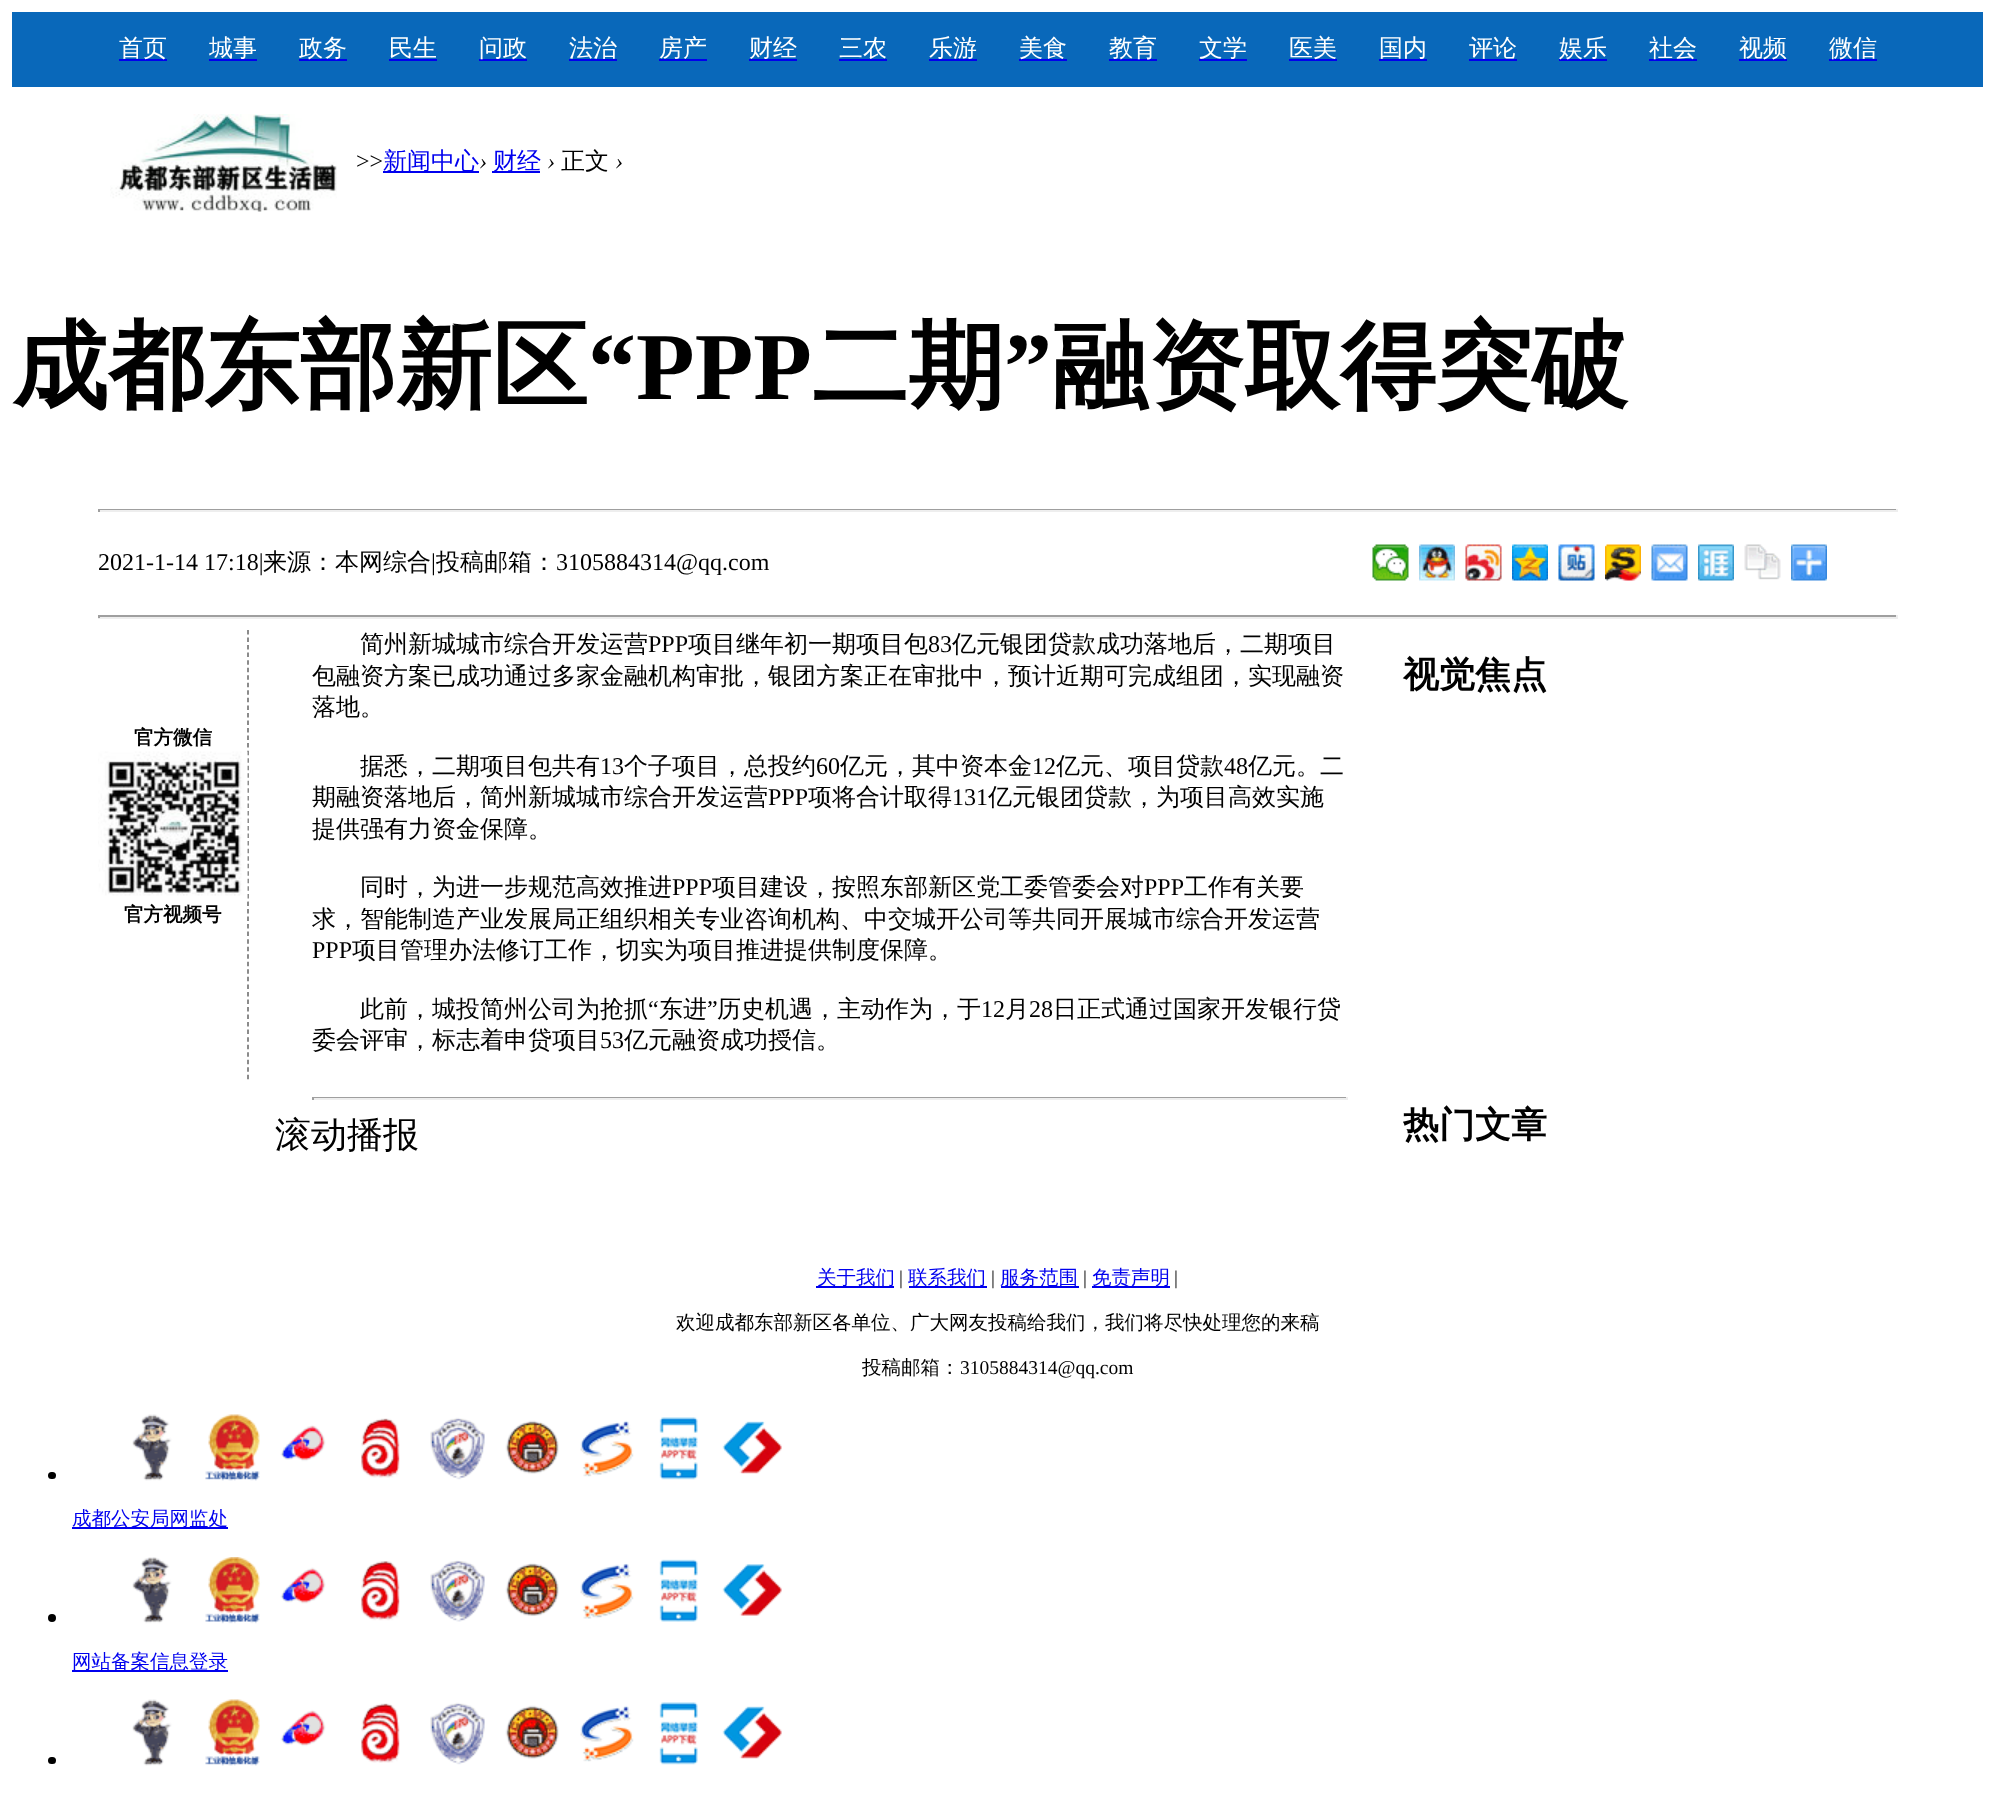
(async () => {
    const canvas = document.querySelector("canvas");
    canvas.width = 1995;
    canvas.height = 1797;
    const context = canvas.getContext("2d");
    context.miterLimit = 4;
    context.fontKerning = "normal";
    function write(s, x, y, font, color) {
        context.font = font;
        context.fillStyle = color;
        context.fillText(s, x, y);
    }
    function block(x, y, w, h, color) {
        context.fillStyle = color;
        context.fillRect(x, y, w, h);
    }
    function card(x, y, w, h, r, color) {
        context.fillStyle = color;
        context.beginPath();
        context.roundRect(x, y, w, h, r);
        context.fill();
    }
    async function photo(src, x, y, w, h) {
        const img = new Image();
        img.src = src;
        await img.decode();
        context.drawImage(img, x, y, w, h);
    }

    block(0, 0, 1995, 1797, "rgb(255, 255, 255)");
    block(12, 12, 1971, 75, "rgb(9, 104, 186)");
    block(119, 59, 48, 2, "rgb(0, 0, 238)");
    write("首页", 119, 56, "500 24px WenQuanYi Zen Hei", "rgb(255, 255, 255)");
    block(209, 59, 48, 2, "rgb(0, 0, 238)");
    write("城事", 209, 56, "500 24px WenQuanYi Zen Hei", "rgb(255, 255, 255)");
    block(299, 59, 48, 2, "rgb(0, 0, 238)");
    write("政务", 299, 56, "500 24px WenQuanYi Zen Hei", "rgb(255, 255, 255)");
    write("民生", 389, 56, "500 24px WenQuanYi Zen Hei", "rgb(255, 255, 255)");
    block(389, 59, 48, 2, "rgb(0, 0, 238)");
    block(479, 59, 48, 2, "rgb(0, 0, 238)");
    write("问政", 479, 56, "500 24px WenQuanYi Zen Hei", "rgb(255, 255, 255)");
    write("法治", 569, 56, "500 24px WenQuanYi Zen Hei", "rgb(255, 255, 255)");
    block(569, 59, 48, 2, "rgb(0, 0, 238)");
    block(659, 59, 48, 2, "rgb(0, 0, 238)");
    write("房产", 659, 56, "500 24px WenQuanYi Zen Hei", "rgb(255, 255, 255)");
    block(749, 59, 48, 2, "rgb(0, 0, 238)");
    write("财经", 749, 56, "500 24px WenQuanYi Zen Hei", "rgb(255, 255, 255)");
    write("三农", 839, 56, "500 24px WenQuanYi Zen Hei", "rgb(255, 255, 255)");
    block(839, 59, 48, 2, "rgb(0, 0, 238)");
    block(929, 59, 48, 2, "rgb(0, 0, 238)");
    write("乐游", 929, 56, "500 24px WenQuanYi Zen Hei", "rgb(255, 255, 255)");
    block(1019, 59, 48, 2, "rgb(0, 0, 238)");
    write("美食", 1019, 56, "500 24px WenQuanYi Zen Hei", "rgb(255, 255, 255)");
    block(1109, 59, 48, 2, "rgb(0, 0, 238)");
    write("教育", 1109, 56, "500 24px WenQuanYi Zen Hei", "rgb(255, 255, 255)");
    block(1199, 59, 48, 2, "rgb(0, 0, 238)");
    write("文学", 1199, 56, "500 24px WenQuanYi Zen Hei", "rgb(255, 255, 255)");
    block(1289, 59, 48, 2, "rgb(0, 0, 238)");
    write("医美", 1289, 56, "500 24px WenQuanYi Zen Hei", "rgb(255, 255, 255)");
    block(1379, 59, 48, 2, "rgb(0, 0, 238)");
    write("国内", 1379, 56, "500 24px WenQuanYi Zen Hei", "rgb(255, 255, 255)");
    write("评论", 1469, 56, "500 24px WenQuanYi Zen Hei", "rgb(255, 255, 255)");
    block(1469, 59, 48, 2, "rgb(0, 0, 238)");
    block(1559, 59, 48, 2, "rgb(0, 0, 238)");
    write("娱乐", 1559, 56, "500 24px WenQuanYi Zen Hei", "rgb(255, 255, 255)");
    block(1649, 59, 48, 2, "rgb(0, 0, 238)");
    write("社会", 1649, 56, "500 24px WenQuanYi Zen Hei", "rgb(255, 255, 255)");
    block(1739, 59, 48, 2, "rgb(0, 0, 238)");
    write("视频", 1739, 56, "500 24px WenQuanYi Zen Hei", "rgb(255, 255, 255)");
    block(1829, 59, 48, 2, "rgb(0, 0, 238)");
    write("微信", 1829, 56, "500 24px WenQuanYi Zen Hei", "rgb(255, 255, 255)");
    await photo("media/1.png", 110, 114, 227, 98);
    write(">>", 356, 169, "24px Liberation Serif", "rgb(0, 0, 0)");
    block(383, 171, 96, 2, "rgb(0, 0, 238)");
    write("新闻中心", 383, 169, "500 24px WenQuanYi Zen Hei", "rgb(0, 0, 238)");
    write("›", 479, 169, "italic 24px Liberation Serif", "rgb(0, 0, 0)");
    block(492, 171, 48, 2, "rgb(0, 0, 238)");
    write("财经", 493, 169, "500 24px WenQuanYi Zen Hei", "rgb(0, 0, 238)");
    write("›", 547, 169, "italic 24px Liberation Serif", "rgb(0, 0, 0)");
    write("正文", 561, 169, "500 24px WenQuanYi Zen Hei", "rgb(0, 0, 0)");
    write("›", 615, 169, "italic 24px Liberation Serif", "rgb(0, 0, 0)");
    write("成都东部新区", 12, 399, "bold 96px WenQuanYi Zen Hei", "rgb(0, 0, 0)");
    write("“PPP", 588, 399, "bold 96px Liberation Serif", "rgb(0, 0, 0)");
    write("二期", 812, 399, "bold 96px WenQuanYi Zen Hei", "rgb(0, 0, 0)");
    write("”", 1004, 399, "bold 96px Liberation Serif", "rgb(0, 0, 0)");
    write("融资取得突破", 1052, 399, "bold 96px WenQuanYi Zen Hei", "rgb(0, 0, 0)");
    block(98, 509, 1800, 1, "rgb(159, 159, 159)");
    block(1896, 509, 2, 3, "rgb(238, 238, 238)");
    block(98, 510, 1800, 2, "rgb(238, 238, 238)");
    block(98, 509, 2, 3, "rgb(159, 159, 159)");
    write("2021-1-14 17:18|", 98, 570, "24px Liberation Serif", "rgb(0, 0, 0)");
    write("来源：本网综合", 263, 570, "500 24px WenQuanYi Zen Hei", "rgb(0, 0, 0)");
    write("|", 431, 570, "24px Liberation Serif", "rgb(0, 0, 0)");
    write("投稿邮箱：", 436, 570, "500 24px WenQuanYi Zen Hei", "rgb(0, 0, 0)");
    write("3105884314@qq.com", 556, 570, "24px Liberation Serif", "rgb(0, 0, 0)");
    await photo("media/2.png", 1372, 544, 37, 37);
    await photo("media/3.png", 1419, 544, 36, 37);
    await photo("media/4.png", 1465, 544, 37, 37);
    await photo("media/5.png", 1512, 544, 36, 37);
    await photo("media/6.png", 1558, 544, 37, 37);
    await photo("media/7.png", 1605, 544, 36, 37);
    await photo("media/8.png", 1651, 544, 37, 37);
    await photo("media/9.png", 1698, 544, 36, 37);
    await photo("media/10.png", 1744, 544, 37, 36);
    await photo("media/11.png", 1791, 544, 36, 37);
    block(98, 615, 1800, 2, "rgb(159, 159, 159)");
    block(1896, 615, 2, 3, "rgb(238, 238, 238)");
    block(98, 617, 1800, 2, "rgb(238, 238, 238)");
    block(98, 615, 2, 3, "rgb(159, 159, 159)");
    context.beginPath();
    context.moveTo(248, 630);
    context.lineTo(248, 1080);
    context.strokeStyle = "rgb(102, 102, 102)";
    context.lineWidth = 1.5;
    context.setLineDash([4.5, 3.04]);
    context.stroke();
    write("官方微信", 134, 744, "bold 19.5px WenQuanYi Zen Hei", "rgb(0, 0, 0)");
    await photo("media/12.png", 98, 751, 150, 151);
    write("官方视频号", 124, 921, "bold 19.5px WenQuanYi Zen Hei", "rgb(0, 0, 0)");
    write("简州新城城市综合开发运营", 360, 652, "500 24px WenQuanYi Zen Hei", "rgb(0, 0, 0)");
    write("PPP", 648, 652, "24px Liberation Serif", "rgb(0, 0, 0)");
    write("项目继年初一期项目包", 688, 652, "500 24px WenQuanYi Zen Hei", "rgb(0, 0, 0)");
    write("83", 928, 652, "24px Liberation Serif", "rgb(0, 0, 0)");
    write("亿元银团贷款成功落地后，二期项目", 952, 652, "500 24px WenQuanYi Zen Hei", "rgb(0, 0, 0)");
    write("包融资方案已成功通过多家金融机构审批，银团方案正在审批中，预计近期可完成组团，实现融资", 312, 684, "500 24px WenQuanYi Zen Hei", "rgb(0, 0, 0)");
    write("落地。", 312, 715, "500 24px WenQuanYi Zen Hei", "rgb(0, 0, 0)");
    write("据悉，二期项目包共有", 360, 774, "500 24px WenQuanYi Zen Hei", "rgb(0, 0, 0)");
    write("13", 600, 774, "24px Liberation Serif", "rgb(0, 0, 0)");
    write("个子项目，总投约", 624, 774, "500 24px WenQuanYi Zen Hei", "rgb(0, 0, 0)");
    write("60", 816, 774, "24px Liberation Serif", "rgb(0, 0, 0)");
    write("亿元，其中资本金", 840, 774, "500 24px WenQuanYi Zen Hei", "rgb(0, 0, 0)");
    write("12", 1032, 774, "24px Liberation Serif", "rgb(0, 0, 0)");
    write("亿元、项目贷款", 1056, 774, "500 24px WenQuanYi Zen Hei", "rgb(0, 0, 0)");
    write("48", 1224, 774, "24px Liberation Serif", "rgb(0, 0, 0)");
    write("亿元。二", 1248, 774, "500 24px WenQuanYi Zen Hei", "rgb(0, 0, 0)");
    write("期融资落地后，简州新城城市综合开发运营", 312, 805, "500 24px WenQuanYi Zen Hei", "rgb(0, 0, 0)");
    write("PPP", 768, 805, "24px Liberation Serif", "rgb(0, 0, 0)");
    write("项将合计取得", 808, 805, "500 24px WenQuanYi Zen Hei", "rgb(0, 0, 0)");
    write("131", 952, 805, "24px Liberation Serif", "rgb(0, 0, 0)");
    write("亿元银团贷款，为项目高效实施", 988, 805, "500 24px WenQuanYi Zen Hei", "rgb(0, 0, 0)");
    write("提供强有力资金保障。", 312, 837, "500 24px WenQuanYi Zen Hei", "rgb(0, 0, 0)");
    write("同时，为进一步规范高效推进", 360, 895, "500 24px WenQuanYi Zen Hei", "rgb(0, 0, 0)");
    write("PPP", 672, 895, "24px Liberation Serif", "rgb(0, 0, 0)");
    write("项目建设，按照东部新区党工委管委会对", 712, 895, "500 24px WenQuanYi Zen Hei", "rgb(0, 0, 0)");
    write("PPP", 1144, 895, "24px Liberation Serif", "rgb(0, 0, 0)");
    write("工作有关要", 1184, 895, "500 24px WenQuanYi Zen Hei", "rgb(0, 0, 0)");
    write("求，智能制造产业发展局正组织相关专业咨询机构、中交城开公司等共同开展城市综合开发运营", 312, 927, "500 24px WenQuanYi Zen Hei", "rgb(0, 0, 0)");
    write("PPP", 312, 958, "24px Liberation Serif", "rgb(0, 0, 0)");
    write("项目管理办法修订工作，切实为项目推进提供制度保障。", 352, 958, "500 24px WenQuanYi Zen Hei", "rgb(0, 0, 0)");
    write("此前，城投简州公司为抢抓", 360, 1017, "500 24px WenQuanYi Zen Hei", "rgb(0, 0, 0)");
    write("“", 648, 1017, "24px Liberation Serif", "rgb(0, 0, 0)");
    write("东进", 659, 1017, "500 24px WenQuanYi Zen Hei", "rgb(0, 0, 0)");
    write("”", 707, 1017, "24px Liberation Serif", "rgb(0, 0, 0)");
    write("历史机遇，主动作为，于", 717, 1017, "500 24px WenQuanYi Zen Hei", "rgb(0, 0, 0)");
    write("12", 981, 1017, "24px Liberation Serif", "rgb(0, 0, 0)");
    write("月", 1005, 1017, "500 24px WenQuanYi Zen Hei", "rgb(0, 0, 0)");
    write("28", 1029, 1017, "24px Liberation Serif", "rgb(0, 0, 0)");
    write("日正式通过国家开发银行贷", 1053, 1017, "500 24px WenQuanYi Zen Hei", "rgb(0, 0, 0)");
    write("委会评审，标志着申贷项目", 312, 1048, "500 24px WenQuanYi Zen Hei", "rgb(0, 0, 0)");
    write("53", 600, 1048, "24px Liberation Serif", "rgb(0, 0, 0)");
    write("亿元融资成功授信。", 624, 1048, "500 24px WenQuanYi Zen Hei", "rgb(0, 0, 0)");
    block(312, 1097, 1035, 1, "rgb(159, 159, 159)");
    block(1346, 1097, 2, 3, "rgb(238, 238, 238)");
    block(312, 1098, 1035, 2, "rgb(238, 238, 238)");
    block(312, 1097, 2, 3, "rgb(159, 159, 159)");
    write("滚动播报", 275, 1147, "500 36px WenQuanYi Zen Hei", "rgb(0, 0, 0)");
    write("视觉焦点", 1403, 687, "bold 36px WenQuanYi Zen Hei", "rgb(0, 0, 0)");
    write("热门文章", 1403, 1137, "bold 36px WenQuanYi Zen Hei", "rgb(0, 0, 0)");
    block(816, 1286, 78, 2, "rgb(0, 0, 238)");
    write("关于我们", 817, 1284, "500 19.5px WenQuanYi Zen Hei", "rgb(0, 0, 238)");
    write("|", 899, 1284, "19.5px Liberation Serif", "rgb(0, 0, 0)");
    block(909, 1286, 78, 2, "rgb(0, 0, 238)");
    write("联系我们", 908, 1284, "500 19.5px WenQuanYi Zen Hei", "rgb(0, 0, 238)");
    write("|", 991, 1284, "19.5px Liberation Serif", "rgb(0, 0, 0)");
    block(1001, 1286, 78, 2, "rgb(0, 0, 238)");
    write("服务范围", 1000, 1284, "500 19.5px WenQuanYi Zen Hei", "rgb(0, 0, 238)");
    write("|", 1083, 1284, "19.5px Liberation Serif", "rgb(0, 0, 0)");
    block(1092, 1286, 78, 2, "rgb(0, 0, 238)");
    write("免责声明", 1092, 1284, "500 19.5px WenQuanYi Zen Hei", "rgb(0, 0, 238)");
    write("|", 1174, 1284, "19.5px Liberation Serif", "rgb(0, 0, 0)");
    write("欢迎成都东部新区各单位、广大网友投稿给我们，我们将尽快处理您的来稿", 676, 1329, "500 19.5px WenQuanYi Zen Hei", "rgb(0, 0, 0)");
    write("投稿邮箱：", 862, 1374, "500 19.5px WenQuanYi Zen Hei", "rgb(0, 0, 0)");
    write("3105884314@qq.com", 960, 1374, "19.5px Liberation Serif", "rgb(0, 0, 0)");
    card(48, 1472, 8, 7, 3.5, "rgb(0, 0, 0)");
    await photo("media/13.png", 132, 1414, 650, 67);
    block(72, 1527, 156, 2, "rgb(0, 0, 238)");
    write("成都公安局网监处", 72, 1525, "500 19.5px WenQuanYi Zen Hei", "rgb(0, 0, 238)");
    context.fillStyle = "rgb(0, 0, 0)";
    context.beginPath();
    context.arc(52, 1618, 4, 0, Math.PI * 2);
    context.fill();
    await photo("media/14.png", 132, 1557, 650, 67);
    block(72, 1670, 156, 2, "rgb(0, 0, 238)");
    write("网站备案信息登录", 72, 1668, "500 19.5px WenQuanYi Zen Hei", "rgb(0, 0, 238)");
    card(48, 1757, 8, 7, 3.5, "rgb(0, 0, 0)");
    await photo("media/13.png", 132, 1699, 650, 67);
})();
